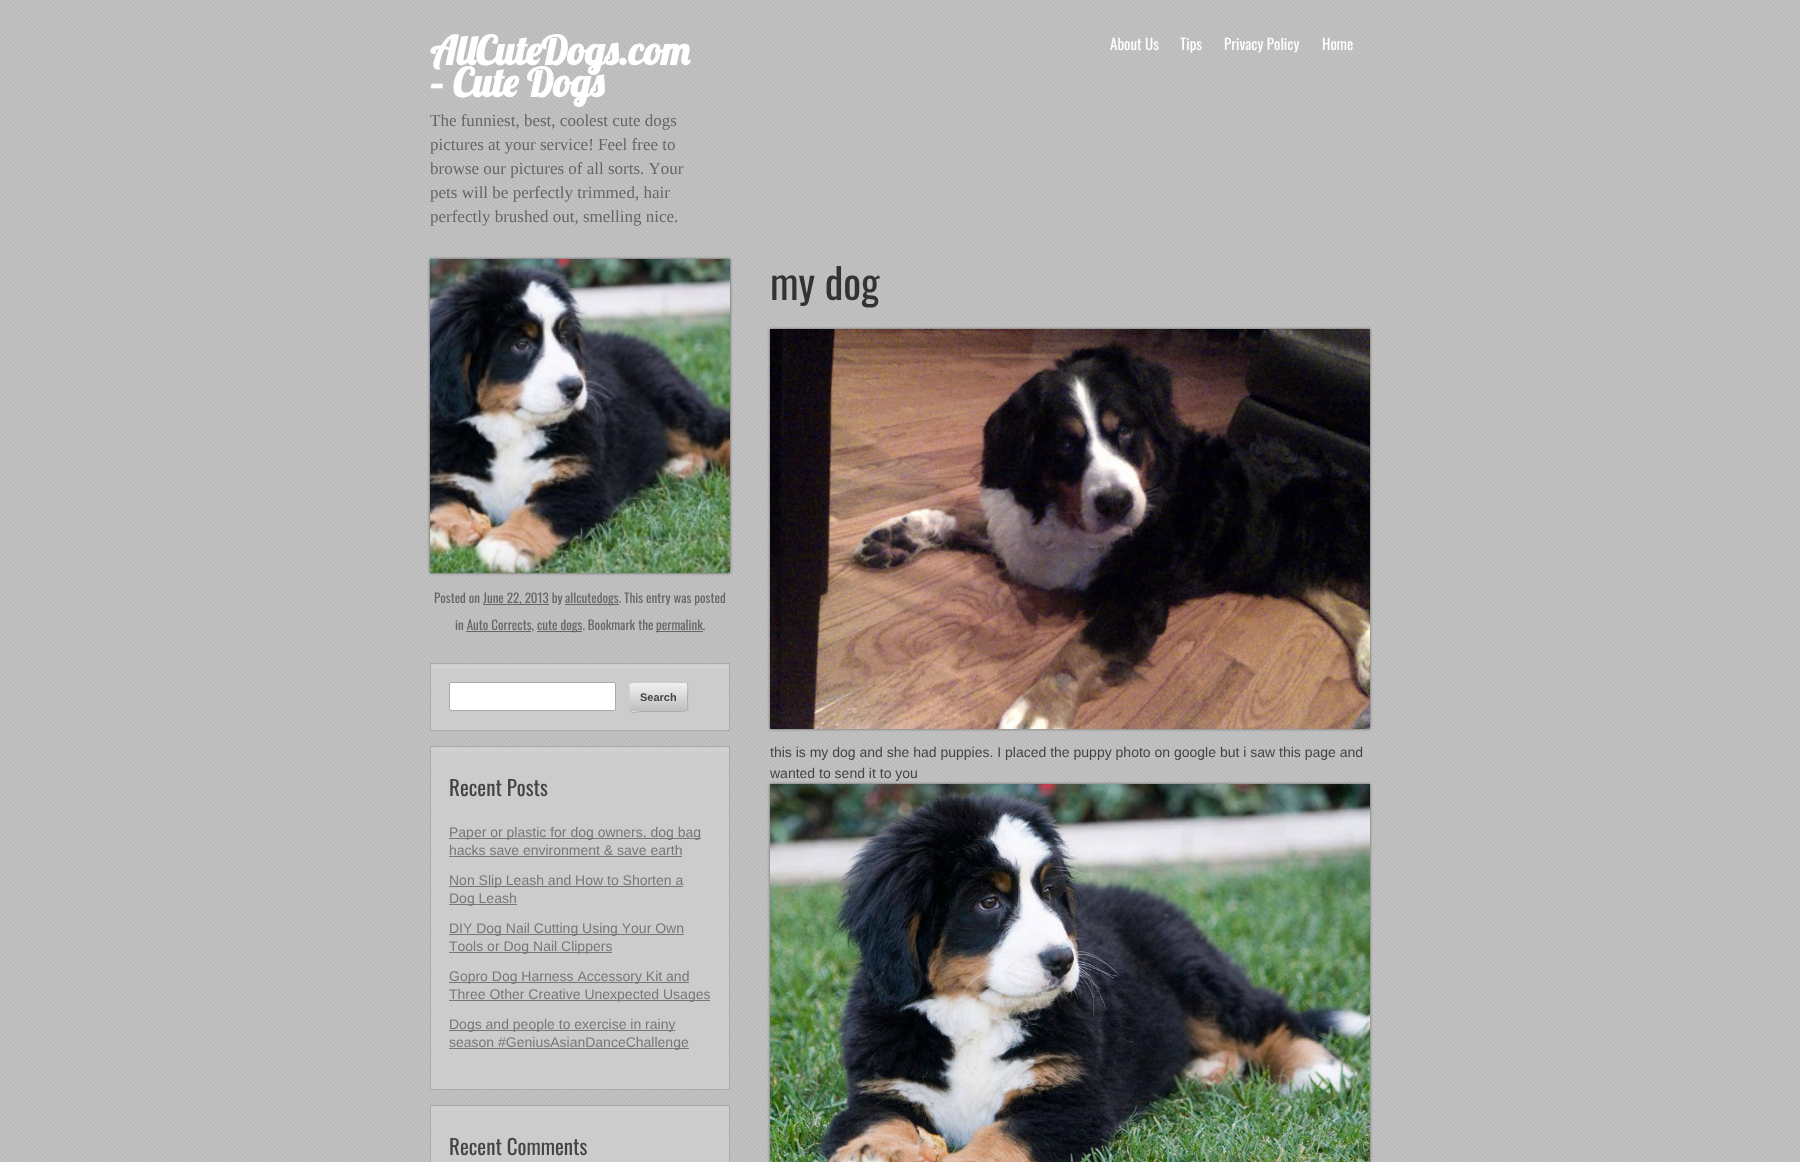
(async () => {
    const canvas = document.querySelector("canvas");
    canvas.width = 1800;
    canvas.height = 1162;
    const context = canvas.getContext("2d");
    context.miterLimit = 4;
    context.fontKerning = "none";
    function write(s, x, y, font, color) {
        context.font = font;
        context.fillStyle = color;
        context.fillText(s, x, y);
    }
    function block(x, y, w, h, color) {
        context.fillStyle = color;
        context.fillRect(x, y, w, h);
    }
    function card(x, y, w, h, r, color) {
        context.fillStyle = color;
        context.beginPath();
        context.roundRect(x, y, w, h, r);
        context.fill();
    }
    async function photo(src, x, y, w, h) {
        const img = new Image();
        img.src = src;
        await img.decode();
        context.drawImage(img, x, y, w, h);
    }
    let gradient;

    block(0, 0, 1800, 1162, "rgb(192, 192, 192)");
    await photo("media/1.png", 0, 0, 1800, 1162);
    write("AllCuteDogs.com", 430, 65, "bold 40px Lobster", "rgb(255, 255, 255)");
    write("– Cute Dogs", 430, 97, "bold 40px Lobster", "rgb(255, 255, 255)");
    write("The funniest, best, coolest cute dogs", 430, 126, "17px Liberation Serif", "rgb(102, 102, 102)");
    write("pictures at your service! Feel free to", 430, 150, "17px Liberation Serif", "rgb(102, 102, 102)");
    write("browse our pictures of all sorts. Your", 430, 174, "17px Liberation Serif", "rgb(102, 102, 102)");
    write("pets will be perfectly trimmed, hair", 430, 198, "17px Liberation Serif", "rgb(102, 102, 102)");
    write("perfectly brushed out, smelling nice.", 430, 222, "17px Liberation Serif", "rgb(102, 102, 102)");
    write("About Us", 1110, 50, "15px Oswald", "rgb(255, 255, 255)");
    write("Tips", 1180, 50, "15px Oswald", "rgb(255, 255, 255)");
    write("Privacy Policy", 1224, 50, "15px Oswald", "rgb(255, 255, 255)");
    write("Home", 1322, 50, "15px Oswald", "rgb(255, 255, 255)");
    write("my dog", 770, 300, "42px Oswald", "rgb(51, 51, 51)");
    context.fillStyle = "rgba(0, 0, 0, 0.5)";
    context.filter = "blur(1.5px)";
    context.beginPath();
    context.rect(770, 329, 600, 400);
    context.fill();
    context.filter = "none";
    await photo("media/2.png", 770, 329, 600, 400);
    write("this is my dog and she had puppies. I placed the puppy photo on google but i saw this page and", 770, 757, "14px Liberation Sans", "rgb(68, 68, 68)");
    write("wanted to send it to you", 770, 778, "14px Liberation Sans", "rgb(68, 68, 68)");
    context.fillStyle = "rgba(0, 0, 0, 0.5)";
    context.filter = "blur(1.5px)";
    context.beginPath();
    context.rect(770, 784, 600, 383);
    context.fill();
    context.filter = "none";
    await photo("media/3.png", 770, 784, 600, 378);
    context.fillStyle = "rgba(0, 0, 0, 0.6)";
    context.filter = "blur(1.5px)";
    context.beginPath();
    context.rect(430, 259, 300, 314);
    context.fill();
    context.filter = "none";
    await photo("media/4.png", 430, 259, 300, 314);
    write("Posted on", 434, 603, "13px Oswald", "rgb(102, 102, 102)");
    block(483, 604, 66, 1, "rgb(102, 102, 102)");
    write("June 22, 2013 by", 483, 603, "13px Oswald", "rgb(102, 102, 102)");
    block(565, 604, 54, 1, "rgb(102, 102, 102)");
    write("allcutedogs. This entry was posted", 565, 603, "13px Oswald", "rgb(102, 102, 102)");
    write("in Auto Corrects,", 455, 630, "13px Oswald", "rgb(102, 102, 102)");
    block(537, 631, 45, 1, "rgb(102, 102, 102)");
    write("cute dogs. Bookmark the", 537, 630, "13px Oswald", "rgb(102, 102, 102)");
    block(656, 631, 47, 1, "rgb(102, 102, 102)");
    write("permalink.", 656, 630, "13px Oswald", "rgb(102, 102, 102)");
    block(466, 631, 65, 1, "rgb(102, 102, 102)");
    block(431, 664, 298, 66, "rgb(204, 204, 204)");
    await photo("media/5.png", 431, 665, 298, 4);
    context.strokeStyle = "rgb(170, 170, 170)";
    context.strokeRect(430.5, 663.5, 299, 67);
    context.fillStyle = "rgb(255, 255, 255)";
    context.beginPath();
    context.roundRect(449.5, 682.5, 166, 28, 1.5);
    context.fill();
    context.stroke();
    card(629, 682, 59, 30, 3, "rgb(238, 238, 238)");
    context.save();
    context.beginPath();
    context.roundRect(629, 682, 59, 30, 3);
    context.clip();
    gradient = context.createLinearGradient(659, 655, 659, 683);
    gradient.addColorStop(0, "rgba(255, 255, 255, 0.2)");
    gradient.addColorStop(1, "rgba(0, 0, 0, 0.2)");
    context.fillStyle = gradient;
    context.fillRect(629, 682, 59, 1);
    gradient = context.createLinearGradient(659, 683, 659, 711);
    gradient.addColorStop(0, "rgba(255, 255, 255, 0.2)");
    gradient.addColorStop(1, "rgba(0, 0, 0, 0.2)");
    context.fillStyle = gradient;
    context.fillRect(629, 683, 59, 28);
    gradient = context.createLinearGradient(659, 711, 659, 739);
    gradient.addColorStop(0, "rgba(255, 255, 255, 0.2)");
    gradient.addColorStop(1, "rgba(0, 0, 0, 0.2)");
    context.fillStyle = gradient;
    context.fillRect(629, 711, 59, 1);
    context.restore();
    context.beginPath();
    context.moveTo(687, 683);
    context.bezierCurveTo(688.5, 685, 687.5, 694.5, 687.5, 697);
    context.bezierCurveTo(687.5, 712.5, 691, 711.5, 676, 711.5);
    context.lineTo(641, 711.5);
    context.bezierCurveTo(637, 711.5, 633, 713.5, 630, 711);
    context.stroke();
    context.beginPath();
    context.moveTo(630, 711);
    context.bezierCurveTo(628.5, 709, 629.5, 699.5, 629.5, 697);
    context.bezierCurveTo(629.5, 681.5, 626, 682.5, 641, 682.5);
    context.lineTo(676, 682.5);
    context.bezierCurveTo(680, 682.5, 684, 680.5, 687, 683);
    context.strokeStyle = "rgb(204, 204, 204)";
    context.stroke();
    write("Search", 640, 701, "bold 11px Liberation Sans", "rgb(68, 68, 68)");
    block(431, 747, 298, 342, "rgb(204, 204, 204)");
    await photo("media/5.png", 431, 748, 298, 4);
    context.strokeStyle = "rgb(170, 170, 170)";
    context.strokeRect(430.5, 746.5, 299, 343);
    write("Recent Posts", 449, 796, "21px Oswald", "rgb(68, 68, 68)");
    block(449, 838, 252, 1, "rgb(119, 119, 119)");
    write("Paper or plastic for dog owners, dog bag", 449, 837, "14px Liberation Sans", "rgb(119, 119, 119)");
    write("hacks save environment & save earth", 449, 855, "14px Liberation Sans", "rgb(119, 119, 119)");
    block(449, 856, 233, 1, "rgb(119, 119, 119)");
    block(449, 886, 234, 1, "rgb(119, 119, 119)");
    write("Non Slip Leash and How to Shorten a", 449, 885, "14px Liberation Sans", "rgb(119, 119, 119)");
    block(449, 904, 68, 1, "rgb(119, 119, 119)");
    write("Dog Leash", 449, 903, "14px Liberation Sans", "rgb(119, 119, 119)");
    block(449, 934, 235, 1, "rgb(119, 119, 119)");
    write("DIY Dog Nail Cutting Using Your Own", 449, 933, "14px Liberation Sans", "rgb(119, 119, 119)");
    block(449, 952, 163, 1, "rgb(119, 119, 119)");
    write("Tools or Dog Nail Clippers", 449, 951, "14px Liberation Sans", "rgb(119, 119, 119)");
    block(449, 982, 240, 1, "rgb(119, 119, 119)");
    write("Gopro Dog Harness Accessory Kit and", 449, 981, "14px Liberation Sans", "rgb(119, 119, 119)");
    block(449, 1000, 261, 1, "rgb(119, 119, 119)");
    write("Three Other Creative Unexpected Usages", 449, 999, "14px Liberation Sans", "rgb(119, 119, 119)");
    block(449, 1030, 226, 1, "rgb(119, 119, 119)");
    write("Dogs and people to exercise in rainy", 449, 1029, "14px Liberation Sans", "rgb(119, 119, 119)");
    block(449, 1048, 240, 1, "rgb(119, 119, 119)");
    write("season #GeniusAsianDanceChallenge", 449, 1047, "14px Liberation Sans", "rgb(119, 119, 119)");
    block(431, 1106, 298, 56, "rgb(204, 204, 204)");
    await photo("media/5.png", 431, 1107, 298, 4);
    context.strokeRect(430.5, 1105.5, 299, 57);
    write("Recent Comments", 449, 1155, "21px Oswald", "rgb(68, 68, 68)");
})();
